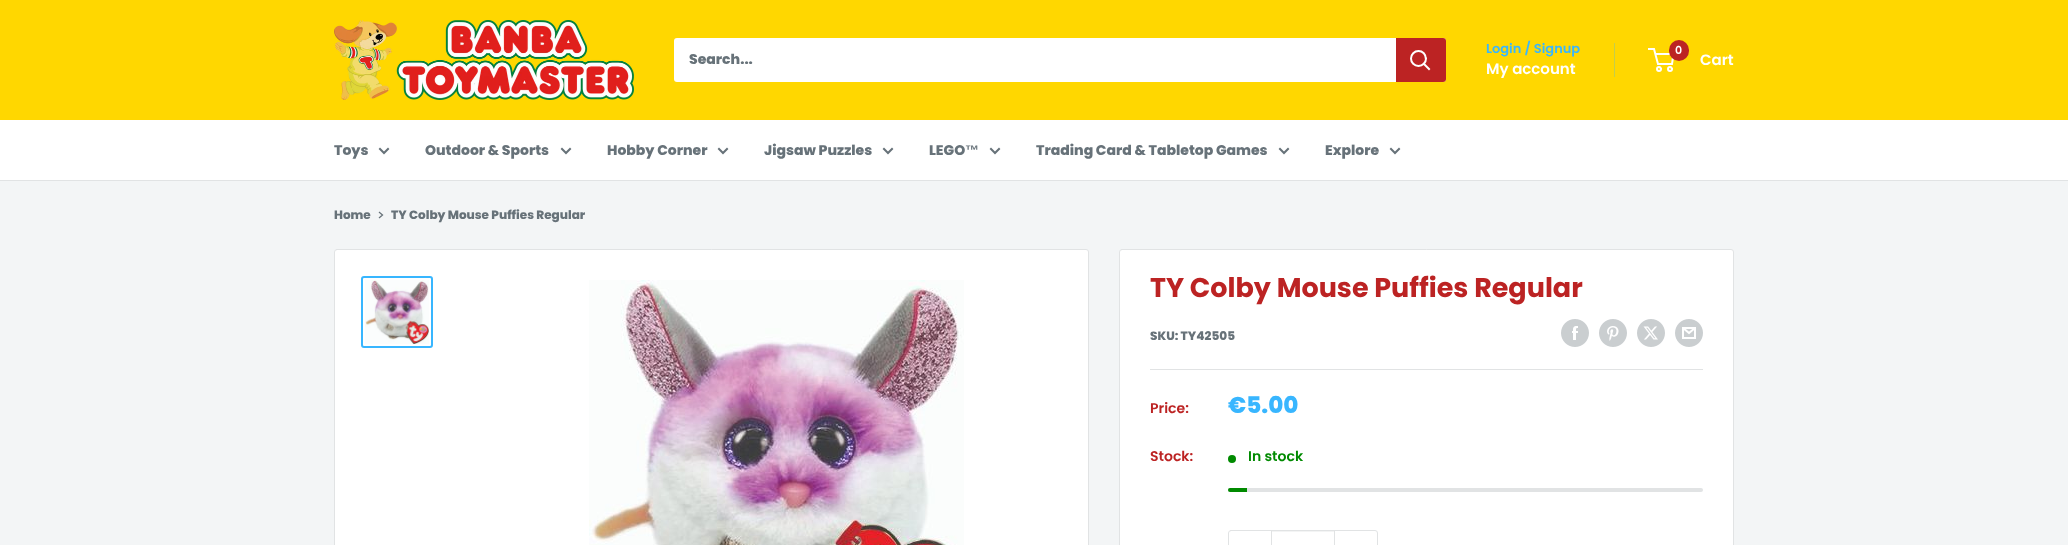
(async () => {
    const canvas = document.querySelector("canvas");
    canvas.width = 2068;
    canvas.height = 545;
    const context = canvas.getContext("2d");
    context.miterLimit = 4;
    context.fontKerning = "normal";
    function write(s, x, y, font, color) {
        context.font = font;
        context.fillStyle = color;
        context.fillText(s, x, y);
    }
    function block(x, y, w, h, color) {
        context.fillStyle = color;
        context.fillRect(x, y, w, h);
    }
    function card(x, y, w, h, r, color) {
        context.fillStyle = color;
        context.beginPath();
        context.roundRect(x, y, w, h, r);
        context.fill();
    }
    async function photo(src, x, y, w, h) {
        const img = new Image();
        img.src = src;
        await img.decode();
        context.drawImage(img, x, y, w, h);
    }

    block(0, 0, 2068, 545, "rgb(243, 245, 246)");
    block(0, 0, 2068, 120, "rgb(255, 215, 0)");
    await photo("media/1.png", 334, 20, 300, 80);
    card(674, 38, 772, 44, 3, "rgb(255, 255, 255)");
    write("Search...", 689, 64, "800 14px Poppins", "rgb(103, 114, 121)");
    context.fillStyle = "rgb(188, 35, 35)";
    context.beginPath();
    context.roundRect(1396, 38, 50, 44, [0, 3, 3, 0]);
    context.fill();
    context.beginPath();
    context.moveTo(1429, 69);
    context.lineTo(1424, 64);
    context.strokeStyle = "rgb(255, 255, 255)";
    context.lineWidth = 2;
    context.lineCap = "square";
    context.stroke();
    context.beginPath();
    context.arc(1418.5, 58.5, 7.5, 0, Math.PI * 2);
    context.stroke();
    write("Login / Signup", 1486, 53, "600 13px Poppins", "rgb(56, 182, 255)");
    block(1614, 43, 1, 34, "rgb(195, 205, 77)");
    write("My account", 1486, 74, "600 15px Poppins", "rgb(255, 255, 255)");
    context.beginPath();
    context.arc(1659, 69, 2, 0, Math.PI * 2);
    context.stroke();
    context.beginPath();
    context.arc(1670, 69, 2, 0, Math.PI * 2);
    context.stroke();
    context.beginPath();
    context.moveTo(1655.5, 54);
    context.lineTo(1673.5, 54);
    context.lineTo(1672, 64);
    context.lineTo(1658, 64);
    context.lineTo(1654, 49);
    context.lineTo(1648, 49);
    context.lineCap = "butt";
    context.stroke();
    card(1669, 40, 20, 21, 10, "rgb(188, 35, 35)");
    write("0", 1675, 54, "600 11px Poppins", "rgb(255, 255, 255)");
    write("Cart", 1700, 65, "600 15px Poppins", "rgb(255, 255, 255)");
    block(0, 120, 2068, 60, "rgb(255, 255, 255)");
    block(0, 180, 2068, 1, "rgb(225, 227, 228)");
    write("Toys", 334, 155, "800 14px Poppins", "rgb(103, 114, 121)");
    context.beginPath();
    context.moveTo(388, 149);
    context.lineTo(384, 153);
    context.lineTo(380, 149);
    context.strokeStyle = "rgb(103, 114, 121)";
    context.lineCap = "square";
    context.stroke();
    write("Outdoor & Sports", 425, 155, "800 14px Poppins", "rgb(103, 114, 121)");
    context.beginPath();
    context.moveTo(570, 149);
    context.lineTo(566, 153);
    context.lineTo(562, 149);
    context.stroke();
    write("Hobby Corner", 607, 155, "800 14px Poppins", "rgb(103, 114, 121)");
    context.beginPath();
    context.moveTo(727, 149);
    context.lineTo(723, 153);
    context.lineTo(719, 149);
    context.stroke();
    write("Jigsaw Puzzles", 764, 155, "800 14px Poppins", "rgb(103, 114, 121)");
    context.beginPath();
    context.moveTo(892, 149);
    context.lineTo(888, 153);
    context.lineTo(884, 149);
    context.stroke();
    write("LEGO", 929, 155, "800 14px Poppins", "rgb(103, 114, 121)");
    write("™", 965, 155, "bold 14px Liberation Sans", "rgb(103, 114, 121)");
    context.beginPath();
    context.moveTo(999, 149);
    context.lineTo(995, 153);
    context.lineTo(991, 149);
    context.stroke();
    write("Trading Card & Tabletop Games", 1036, 155, "800 14px Poppins", "rgb(103, 114, 121)");
    context.beginPath();
    context.moveTo(1288, 149);
    context.lineTo(1284, 153);
    context.lineTo(1280, 149);
    context.stroke();
    write("Explore", 1325, 155, "800 14px Poppins", "rgb(103, 114, 121)");
    context.beginPath();
    context.moveTo(1399, 149);
    context.lineTo(1395, 153);
    context.lineTo(1391, 149);
    context.stroke();
    write("Home", 334, 219, "800 12px Poppins", "rgb(103, 114, 121)");
    context.beginPath();
    context.moveTo(379.5, 212.5);
    context.lineTo(382.5, 215);
    context.lineTo(379.5, 217.5);
    context.lineWidth = 1.3;
    context.stroke();
    write("TY Colby Mouse Puffies Regular", 391, 219, "800 12px Poppins", "rgb(103, 114, 121)");
    context.fillStyle = "rgb(255, 255, 255)";
    context.beginPath();
    context.roundRect(334.5, 249.5, 754, 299, 2.5);
    context.fill();
    context.strokeStyle = "rgb(225, 227, 228)";
    context.lineWidth = 1;
    context.stroke();
    context.beginPath();
    context.roundRect(362, 277, 70, 70, 2);
    context.strokeStyle = "rgb(56, 182, 255)";
    context.lineWidth = 2;
    context.stroke();
    await photo("media/2.png", 365, 280, 64, 64);
    await photo("media/3.png", 589, 280, 375, 265);
    context.beginPath();
    context.roundRect(1119.5, 249.5, 614, 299, 2.5);
    context.fill();
    context.strokeStyle = "rgb(225, 227, 228)";
    context.lineWidth = 1;
    context.stroke();
    write("TY Colby Mouse Puffies Regular", 1150, 297, "bold 27px Poppins", "rgb(188, 35, 35)");
    write("SKU: TY42505", 1150, 340, "800 12px Poppins", "rgb(103, 114, 121)");
    await photo("media/4.png", 1561, 319, 28, 28);
    await photo("media/5.png", 1599, 319, 28, 28);
    await photo("media/6.png", 1637, 319, 28, 28);
    await photo("media/7.png", 1675, 319, 28, 28);
    block(1150, 369, 553, 1, "rgb(225, 227, 228)");
    write("Price:", 1150, 413, "600 14px Poppins", "rgb(188, 35, 35)");
    write("€5.00", 1228, 413, "800 23px Poppins", "rgb(56, 182, 255)");
    write("Stock:", 1150, 461, "600 14px Poppins", "rgb(188, 35, 35)");
    context.fillStyle = "rgb(0, 138, 0)";
    context.beginPath();
    context.arc(1232, 459, 4, 0, Math.PI * 2);
    context.fill();
    write("In stock", 1248, 461, "600 14px Poppins", "rgb(0, 138, 0)");
    card(1228, 488, 475, 4, 2, "rgb(225, 227, 228)");
    context.fillStyle = "rgb(0, 138, 0)";
    context.beginPath();
    context.roundRect(1228, 488, 19, 4, [2, 0, 0, 2]);
    context.fill();
    context.beginPath();
    context.roundRect(1228.5, 530.5, 149, 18, 2.5);
    context.stroke();
    block(1272, 531, 62, 1, "rgb(243, 244, 244)");
    block(1334, 531, 1, 14, "rgb(225, 227, 228)");
    block(1271, 531, 1, 14, "rgb(225, 227, 228)");
})();
